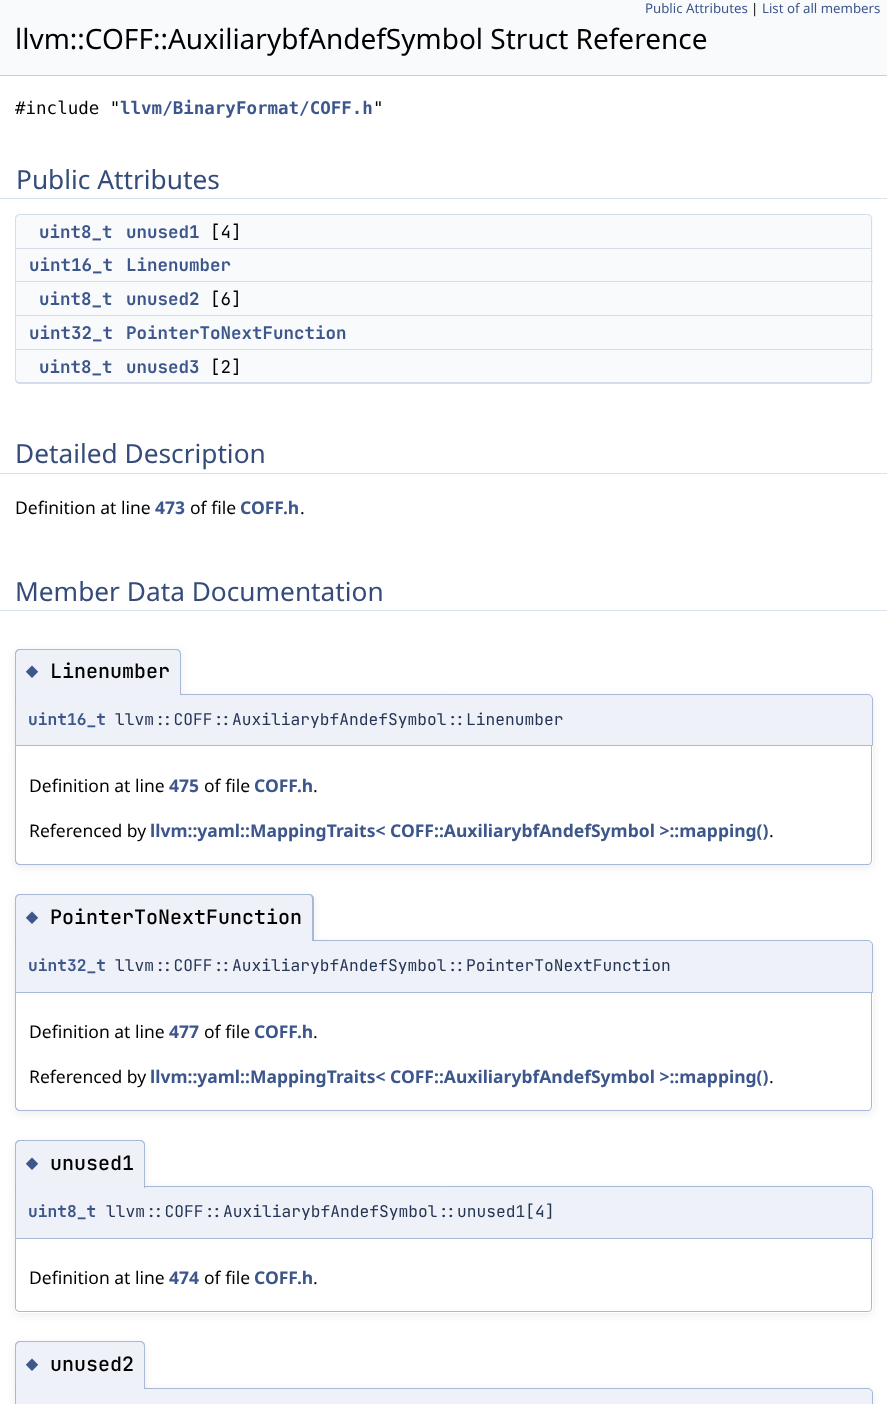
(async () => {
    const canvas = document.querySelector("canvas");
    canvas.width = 887;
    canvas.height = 1404;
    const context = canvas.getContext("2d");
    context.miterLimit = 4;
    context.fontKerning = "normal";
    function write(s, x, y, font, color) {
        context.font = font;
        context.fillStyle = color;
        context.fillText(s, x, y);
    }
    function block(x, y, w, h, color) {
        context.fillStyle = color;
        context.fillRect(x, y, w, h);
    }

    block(0, 0, 887, 1404, "rgb(255, 255, 255)");
    block(0, 0, 887, 75, "rgb(249, 250, 252)");
    block(0, 75, 887, 1, "rgb(196, 207, 229)");
    write("Public Attributes", 645, 13, "13.25px Noto Sans", "rgb(61, 87, 140)");
    write("|", 751, 13, "13.25px Noto Sans", "rgb(0, 0, 0)");
    write("List of all members", 762, 13, "13.25px Noto Sans", "rgb(61, 87, 140)");
    write("llvm::COFF::AuxiliarybfAndefSymbol Struct Reference", 15, 49, "28px Noto Sans", "rgb(0, 0, 0)");
    write("#include \"", 15, 114, "17.5px DejaVu Sans Mono", "rgb(0, 0, 0)");
    write("llvm/BinaryFormat/COFF.h", 120, 114, "bold 17.5px DejaVu Sans Mono", "rgb(61, 87, 140)");
    write("\"", 373, 114, "17.5px DejaVu Sans Mono", "rgb(0, 0, 0)");
    context.fillStyle = "rgb(217, 224, 238)";
    context.beginPath();
    context.moveTo(0, 156);
    context.lineTo(0, 199);
    context.lineTo(855, 199);
    context.lineTo(855, 198);
    context.lineTo(16, 198);
    context.lineTo(16, 156);
    context.closePath();
    context.fill();
    context.beginPath();
    context.moveTo(33, 198);
    context.lineTo(33, 199);
    context.lineTo(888, 199);
    context.lineTo(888, 156);
    context.lineTo(871, 156);
    context.lineTo(871, 198);
    context.closePath();
    context.fill();
    context.fillStyle = "rgb(255, 255, 255)";
    context.beginPath();
    context.moveTo(0, 155);
    context.lineTo(0, 198);
    context.lineTo(855, 198);
    context.lineTo(16, 198);
    context.lineTo(16, 155);
    context.closePath();
    context.fill();
    context.beginPath();
    context.moveTo(33, 198);
    context.lineTo(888, 198);
    context.lineTo(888, 155);
    context.lineTo(871, 155);
    context.lineTo(871, 198);
    context.closePath();
    context.fill();
    write("Public Attributes", 16, 189, "26.25px Noto Sans", "rgb(53, 76, 123)");
    context.fillStyle = "rgb(249, 250, 252)";
    context.beginPath();
    context.roundRect(15, 214, 110, 35, [5, 0, 0, 0]);
    context.fill();
    context.fillStyle = "rgb(213, 221, 236)";
    context.beginPath();
    context.moveTo(20, 214);
    context.lineTo(125, 214);
    context.lineTo(125, 249);
    context.lineTo(15, 249);
    context.lineTo(15, 219);
    context.bezierCurveTo(15, 216, 17, 214, 20, 214);
    context.closePath();
    context.moveTo(20, 215);
    context.lineTo(125, 215);
    context.lineTo(125, 248);
    context.lineTo(16, 248);
    context.lineTo(16, 219);
    context.bezierCurveTo(16, 217, 18, 215, 20, 215);
    context.closePath();
    context.fill("evenodd");
    write("uint8_t", 39, 238, "bold 17.5px JetBrains Mono", "rgb(61, 87, 140)");
    context.fillStyle = "rgb(249, 250, 252)";
    context.beginPath();
    context.roundRect(125, 214, 748, 35, [0, 5, 0, 0]);
    context.fill();
    context.fillStyle = "rgb(213, 221, 236)";
    context.beginPath();
    context.moveTo(125, 214);
    context.lineTo(868, 214);
    context.bezierCurveTo(870, 214, 872, 216, 872, 219);
    context.lineTo(872, 249);
    context.lineTo(125, 249);
    context.closePath();
    context.moveTo(125, 215);
    context.lineTo(868, 215);
    context.bezierCurveTo(870, 215, 871, 217, 871, 219);
    context.lineTo(871, 248);
    context.lineTo(125, 248);
    context.closePath();
    context.fill("evenodd");
    write("unused1", 126, 238, "bold 17.5px JetBrains Mono", "rgb(61, 87, 140)");
    write("[4]", 210, 238, "17.5px JetBrains Mono", "rgb(0, 0, 0)");
    block(16, 249, 857, 34, "rgb(249, 250, 252)");
    block(15, 281, 110, 1, "rgb(213, 221, 236)");
    block(15, 249, 1, 34, "rgb(213, 221, 236)");
    write("uint16_t", 29, 271, "bold 17.5px JetBrains Mono", "rgb(61, 87, 140)");
    block(871, 249, 1, 34, "rgb(213, 221, 236)");
    block(125, 281, 748, 1, "rgb(213, 221, 236)");
    write("Linenumber", 126, 271, "bold 17.5px JetBrains Mono", "rgb(61, 87, 140)");
    block(16, 283, 857, 32, "rgb(249, 250, 252)");
    block(15, 315, 110, 1, "rgb(213, 221, 236)");
    block(15, 283, 1, 33, "rgb(213, 221, 236)");
    write("uint8_t", 39, 305, "bold 17.5px JetBrains Mono", "rgb(61, 87, 140)");
    block(871, 283, 1, 33, "rgb(213, 221, 236)");
    block(125, 315, 748, 1, "rgb(213, 221, 236)");
    write("unused2", 126, 305, "bold 17.5px JetBrains Mono", "rgb(61, 87, 140)");
    write("[6]", 210, 305, "17.5px JetBrains Mono", "rgb(0, 0, 0)");
    block(16, 316, 857, 33, "rgb(249, 250, 252)");
    block(15, 349, 110, 1, "rgb(213, 221, 236)");
    block(15, 316, 1, 34, "rgb(213, 221, 236)");
    write("uint32_t", 29, 339, "bold 17.5px JetBrains Mono", "rgb(61, 87, 140)");
    block(871, 316, 1, 34, "rgb(213, 221, 236)");
    block(125, 349, 748, 1, "rgb(213, 221, 236)");
    write("PointerToNextFunction", 126, 339, "bold 17.5px JetBrains Mono", "rgb(61, 87, 140)");
    context.fillStyle = "rgb(249, 250, 252)";
    context.beginPath();
    context.roundRect(15, 350, 110, 34, [0, 0, 0, 5]);
    context.fill();
    context.fillStyle = "rgb(213, 221, 236)";
    context.beginPath();
    context.moveTo(15, 350);
    context.lineTo(125, 350);
    context.lineTo(125, 384);
    context.lineTo(20, 384);
    context.bezierCurveTo(17, 384, 15, 382, 15, 379);
    context.closePath();
    context.moveTo(16, 350);
    context.lineTo(125, 350);
    context.lineTo(125, 382);
    context.lineTo(20, 382);
    context.bezierCurveTo(18, 382, 16, 381, 16, 379);
    context.closePath();
    context.fill("evenodd");
    write("uint8_t", 39, 373, "bold 17.5px JetBrains Mono", "rgb(61, 87, 140)");
    context.fillStyle = "rgb(249, 250, 252)";
    context.beginPath();
    context.roundRect(125, 350, 748, 34, [0, 0, 5, 0]);
    context.fill();
    context.fillStyle = "rgb(213, 221, 236)";
    context.beginPath();
    context.moveTo(125, 350);
    context.lineTo(872, 350);
    context.lineTo(872, 379);
    context.bezierCurveTo(872, 382, 870, 384, 868, 384);
    context.lineTo(125, 384);
    context.closePath();
    context.moveTo(125, 350);
    context.lineTo(871, 350);
    context.lineTo(871, 379);
    context.bezierCurveTo(871, 381, 870, 382, 868, 382);
    context.lineTo(125, 382);
    context.closePath();
    context.fill("evenodd");
    write("unused3", 126, 373, "bold 17.5px JetBrains Mono", "rgb(61, 87, 140)");
    write("[2]", 210, 373, "17.5px JetBrains Mono", "rgb(0, 0, 0)");
    context.fillStyle = "rgb(217, 224, 238)";
    context.beginPath();
    context.moveTo(0, 431);
    context.lineTo(0, 474);
    context.lineTo(858, 474);
    context.lineTo(858, 472);
    context.lineTo(15, 472);
    context.lineTo(15, 431);
    context.closePath();
    context.fill();
    context.beginPath();
    context.moveTo(30, 472);
    context.lineTo(30, 474);
    context.lineTo(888, 474);
    context.lineTo(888, 431);
    context.lineTo(872, 431);
    context.lineTo(872, 472);
    context.closePath();
    context.fill();
    context.fillStyle = "rgb(255, 255, 255)";
    context.beginPath();
    context.moveTo(0, 430);
    context.lineTo(0, 473);
    context.lineTo(858, 473);
    context.lineTo(858, 472);
    context.lineTo(15, 472);
    context.lineTo(15, 430);
    context.closePath();
    context.fill();
    context.beginPath();
    context.moveTo(30, 472);
    context.lineTo(30, 473);
    context.lineTo(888, 473);
    context.lineTo(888, 430);
    context.lineTo(872, 430);
    context.lineTo(872, 472);
    context.closePath();
    context.fill();
    write("Detailed Description", 15, 463, "26.25px Noto Sans", "rgb(53, 76, 123)");
    write("Definition at line", 15, 514, "17.5px Noto Sans", "rgb(0, 0, 0)");
    write("473", 155, 514, "bold 17.5px Noto Sans", "rgb(61, 87, 140)");
    write("of file", 190, 514, "17.5px Noto Sans", "rgb(0, 0, 0)");
    write("COFF.h", 240, 514, "bold 17.5px Noto Sans", "rgb(61, 87, 140)");
    write(".", 300, 514, "17.5px Noto Sans", "rgb(0, 0, 0)");
    context.fillStyle = "rgb(217, 224, 238)";
    context.beginPath();
    context.moveTo(0, 569);
    context.lineTo(0, 611);
    context.lineTo(858, 611);
    context.lineTo(858, 610);
    context.lineTo(15, 610);
    context.lineTo(15, 569);
    context.closePath();
    context.fill();
    context.beginPath();
    context.moveTo(30, 610);
    context.lineTo(30, 611);
    context.lineTo(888, 611);
    context.lineTo(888, 569);
    context.lineTo(872, 569);
    context.lineTo(872, 610);
    context.closePath();
    context.fill();
    block(0, 569, 15, 41, "rgb(255, 255, 255)");
    block(872, 569, 15, 41, "rgb(255, 255, 255)");
    write("Member Data Documentation", 15, 601, "26.25px Noto Sans", "rgb(53, 76, 123)");
    context.save();
    context.beginPath();
    context.moveTo(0, 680);
    context.lineTo(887, 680);
    context.lineTo(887, 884);
    context.lineTo(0, 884);
    context.closePath();
    context.moveTo(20, 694);
    context.lineTo(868, 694);
    context.bezierCurveTo(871, 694, 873, 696, 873, 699);
    context.lineTo(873, 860);
    context.bezierCurveTo(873, 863, 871, 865, 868, 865);
    context.lineTo(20, 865);
    context.bezierCurveTo(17, 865, 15, 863, 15, 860);
    context.lineTo(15, 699);
    context.bezierCurveTo(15, 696, 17, 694, 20, 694);
    context.closePath();
    context.clip("evenodd");
    context.fillStyle = "rgba(0, 0, 0, 0.07)";
    context.filter = "blur(5px)";
    context.beginPath();
    context.roundRect(15, 696, 858, 172, 5);
    context.fill();
    context.filter = "none";
    context.restore();
    context.fillStyle = "rgb(238, 241, 247)";
    context.beginPath();
    context.roundRect(15.5, 694.5, 857, 51, [0, 4.5, 0, 0]);
    context.fill();
    context.strokeStyle = "rgb(168, 184, 217)";
    context.stroke();
    context.fillStyle = "rgba(0, 0, 0, 0.07)";
    context.filter = "blur(5px)";
    context.beginPath();
    context.roundRect(15, 651, 166, 47, 5);
    context.fill();
    context.filter = "none";
    context.fillStyle = "rgb(238, 241, 247)";
    context.beginPath();
    context.roundRect(15, 649, 166, 46, [5, 5, 0, 0]);
    context.fill();
    context.fillStyle = "rgb(168, 184, 217)";
    context.beginPath();
    context.moveTo(20, 649);
    context.lineTo(176, 649);
    context.bezierCurveTo(179, 649, 181, 651, 181, 654);
    context.lineTo(181, 695);
    context.lineTo(15, 695);
    context.lineTo(15, 654);
    context.bezierCurveTo(15, 651, 17, 649, 20, 649);
    context.closePath();
    context.moveTo(20, 650);
    context.lineTo(176, 650);
    context.bezierCurveTo(178, 650, 180, 652, 180, 654);
    context.lineTo(180, 695);
    context.lineTo(16, 695);
    context.lineTo(16, 654);
    context.bezierCurveTo(16, 652, 18, 650, 20, 650);
    context.closePath();
    context.fill("evenodd");
    write("◆", 26, 679, "20px JetBrains Mono", "rgb(61, 87, 140)");
    write("Linenumber", 50, 678, "500 20px JetBrains Mono", "rgb(0, 0, 0)");
    context.fillStyle = "rgb(238, 241, 247)";
    context.beginPath();
    context.roundRect(16, 695, 182, 13, [0, 8, 0, 0]);
    context.fill();
    write("uint16_t", 28, 725, "bold 16.25px JetBrains Mono", "rgb(61, 87, 140)");
    write("llvm::COFF::AuxiliarybfAndefSymbol::Linenumber", 115, 725, "16.25px JetBrains Mono", "rgb(37, 53, 85)");
    context.fillStyle = "rgb(168, 184, 217)";
    context.beginPath();
    context.moveTo(15, 746);
    context.lineTo(872, 746);
    context.lineTo(872, 860);
    context.bezierCurveTo(872, 863, 870, 865, 868, 865);
    context.lineTo(20, 865);
    context.bezierCurveTo(17, 865, 15, 863, 15, 860);
    context.closePath();
    context.moveTo(16, 746);
    context.lineTo(871, 746);
    context.lineTo(871, 860);
    context.bezierCurveTo(871, 862, 870, 864, 868, 864);
    context.lineTo(20, 864);
    context.bezierCurveTo(18, 864, 16, 862, 16, 860);
    context.closePath();
    context.fill("evenodd");
    write("Definition at line", 29, 792, "17.5px Noto Sans", "rgb(0, 0, 0)");
    write("475", 169, 792, "bold 17.5px Noto Sans", "rgb(61, 87, 140)");
    write("of file", 204, 792, "17.5px Noto Sans", "rgb(0, 0, 0)");
    write("COFF.h", 254, 792, "bold 17.5px Noto Sans", "rgb(61, 87, 140)");
    write(".", 313, 792, "17.5px Noto Sans", "rgb(0, 0, 0)");
    write("Referenced by", 29, 837, "17.5px Noto Sans", "rgb(0, 0, 0)");
    write("llvm::yaml::MappingTraits< COFF::AuxiliarybfAndefSymbol >::mapping()", 150, 837, "bold 17.5px Noto Sans", "rgb(61, 87, 140)");
    write(".", 769, 837, "17.5px Noto Sans", "rgb(0, 0, 0)");
    context.save();
    context.beginPath();
    context.moveTo(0, 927);
    context.lineTo(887, 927);
    context.lineTo(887, 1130);
    context.lineTo(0, 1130);
    context.closePath();
    context.moveTo(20, 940);
    context.lineTo(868, 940);
    context.bezierCurveTo(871, 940, 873, 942, 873, 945);
    context.lineTo(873, 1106);
    context.bezierCurveTo(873, 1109, 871, 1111, 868, 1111);
    context.lineTo(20, 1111);
    context.bezierCurveTo(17, 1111, 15, 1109, 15, 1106);
    context.lineTo(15, 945);
    context.bezierCurveTo(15, 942, 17, 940, 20, 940);
    context.closePath();
    context.clip("evenodd");
    context.fillStyle = "rgba(0, 0, 0, 0.07)";
    context.filter = "blur(5px)";
    context.beginPath();
    context.roundRect(15, 943, 858, 171, 5);
    context.fill();
    context.filter = "none";
    context.restore();
    context.fillStyle = "rgb(238, 241, 247)";
    context.beginPath();
    context.roundRect(15.5, 940.5, 857, 52, [0, 4.5, 0, 0]);
    context.fill();
    context.stroke();
    context.fillStyle = "rgba(0, 0, 0, 0.07)";
    context.filter = "blur(5px)";
    context.beginPath();
    context.roundRect(15, 896, 299, 48, 5);
    context.fill();
    context.filter = "none";
    context.fillStyle = "rgb(238, 241, 247)";
    context.beginPath();
    context.roundRect(15, 894, 299, 47, [5, 5, 0, 0]);
    context.fill();
    context.fillStyle = "rgb(168, 184, 217)";
    context.beginPath();
    context.moveTo(20, 894);
    context.lineTo(309, 894);
    context.bezierCurveTo(312, 894, 314, 896, 314, 899);
    context.lineTo(314, 941);
    context.lineTo(15, 941);
    context.lineTo(15, 899);
    context.bezierCurveTo(15, 896, 17, 894, 20, 894);
    context.closePath();
    context.moveTo(20, 895);
    context.lineTo(309, 895);
    context.bezierCurveTo(311, 895, 312, 897, 312, 899);
    context.lineTo(312, 941);
    context.lineTo(16, 941);
    context.lineTo(16, 899);
    context.bezierCurveTo(16, 897, 18, 895, 20, 895);
    context.closePath();
    context.fill("evenodd");
    write("◆", 26, 925, "20px JetBrains Mono", "rgb(61, 87, 140)");
    write("PointerToNextFunction", 50, 924, "500 20px JetBrains Mono", "rgb(0, 0, 0)");
    context.fillStyle = "rgb(238, 241, 247)";
    context.beginPath();
    context.roundRect(16, 941, 314, 13, [0, 8, 0, 0]);
    context.fill();
    write("uint32_t", 28, 971, "bold 16.25px JetBrains Mono", "rgb(61, 87, 140)");
    write("llvm::COFF::AuxiliarybfAndefSymbol::PointerToNextFunction", 115, 971, "16.25px JetBrains Mono", "rgb(37, 53, 85)");
    context.fillStyle = "rgb(168, 184, 217)";
    context.beginPath();
    context.moveTo(15, 992);
    context.lineTo(872, 992);
    context.lineTo(872, 1106);
    context.bezierCurveTo(872, 1109, 870, 1111, 868, 1111);
    context.lineTo(20, 1111);
    context.bezierCurveTo(17, 1111, 15, 1109, 15, 1106);
    context.closePath();
    context.moveTo(16, 992);
    context.lineTo(871, 992);
    context.lineTo(871, 1106);
    context.bezierCurveTo(871, 1108, 870, 1110, 868, 1110);
    context.lineTo(20, 1110);
    context.bezierCurveTo(18, 1110, 16, 1108, 16, 1106);
    context.closePath();
    context.fill("evenodd");
    write("Definition at line", 29, 1038, "17.5px Noto Sans", "rgb(0, 0, 0)");
    write("477", 169, 1038, "bold 17.5px Noto Sans", "rgb(61, 87, 140)");
    write("of file", 204, 1038, "17.5px Noto Sans", "rgb(0, 0, 0)");
    write("COFF.h", 254, 1038, "bold 17.5px Noto Sans", "rgb(61, 87, 140)");
    write(".", 313, 1038, "17.5px Noto Sans", "rgb(0, 0, 0)");
    write("Referenced by", 29, 1083, "17.5px Noto Sans", "rgb(0, 0, 0)");
    write("llvm::yaml::MappingTraits< COFF::AuxiliarybfAndefSymbol >::mapping()", 150, 1083, "bold 17.5px Noto Sans", "rgb(61, 87, 140)");
    write(".", 769, 1083, "17.5px Noto Sans", "rgb(0, 0, 0)");
    context.save();
    context.beginPath();
    context.moveTo(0, 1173);
    context.lineTo(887, 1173);
    context.lineTo(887, 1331);
    context.lineTo(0, 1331);
    context.closePath();
    context.moveTo(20, 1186);
    context.lineTo(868, 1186);
    context.bezierCurveTo(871, 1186, 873, 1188, 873, 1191);
    context.lineTo(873, 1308);
    context.bezierCurveTo(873, 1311, 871, 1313, 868, 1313);
    context.lineTo(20, 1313);
    context.bezierCurveTo(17, 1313, 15, 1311, 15, 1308);
    context.lineTo(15, 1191);
    context.bezierCurveTo(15, 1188, 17, 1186, 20, 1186);
    context.closePath();
    context.clip("evenodd");
    context.fillStyle = "rgba(0, 0, 0, 0.07)";
    context.filter = "blur(5px)";
    context.beginPath();
    context.roundRect(15, 1189, 858, 126, 5);
    context.fill();
    context.filter = "none";
    context.restore();
    context.fillStyle = "rgb(238, 241, 247)";
    context.beginPath();
    context.roundRect(15.5, 1186.5, 857, 52, [0, 4.5, 0, 0]);
    context.fill();
    context.stroke();
    context.fillStyle = "rgba(0, 0, 0, 0.07)";
    context.filter = "blur(5px)";
    context.beginPath();
    context.roundRect(15, 1143, 130, 47, 5);
    context.fill();
    context.filter = "none";
    context.fillStyle = "rgb(238, 241, 247)";
    context.beginPath();
    context.roundRect(15, 1140, 130, 48, [5, 5, 0, 0]);
    context.fill();
    context.fillStyle = "rgb(168, 184, 217)";
    context.beginPath();
    context.moveTo(20, 1140);
    context.lineTo(140, 1140);
    context.bezierCurveTo(143, 1140, 145, 1142, 145, 1145);
    context.lineTo(145, 1188);
    context.lineTo(15, 1188);
    context.lineTo(15, 1145);
    context.bezierCurveTo(15, 1142, 17, 1140, 20, 1140);
    context.closePath();
    context.moveTo(20, 1141);
    context.lineTo(140, 1141);
    context.bezierCurveTo(142, 1141, 144, 1143, 144, 1145);
    context.lineTo(144, 1188);
    context.lineTo(16, 1188);
    context.lineTo(16, 1145);
    context.bezierCurveTo(16, 1143, 18, 1141, 20, 1141);
    context.closePath();
    context.fill("evenodd");
    write("◆", 26, 1171, "20px JetBrains Mono", "rgb(61, 87, 140)");
    write("unused1", 50, 1170, "500 20px JetBrains Mono", "rgb(0, 0, 0)");
    context.fillStyle = "rgb(238, 241, 247)";
    context.beginPath();
    context.roundRect(16, 1188, 145, 12, [0, 8, 0, 0]);
    context.fill();
    write("uint8_t", 28, 1217, "bold 16.25px JetBrains Mono", "rgb(61, 87, 140)");
    write("llvm::COFF::AuxiliarybfAndefSymbol::unused1[4]", 106, 1217, "16.25px JetBrains Mono", "rgb(37, 53, 85)");
    context.fillStyle = "rgb(168, 184, 217)";
    context.beginPath();
    context.moveTo(15, 1239);
    context.lineTo(872, 1239);
    context.lineTo(872, 1308);
    context.bezierCurveTo(872, 1310, 870, 1312, 868, 1312);
    context.lineTo(20, 1312);
    context.bezierCurveTo(17, 1312, 15, 1310, 15, 1308);
    context.closePath();
    context.moveTo(16, 1239);
    context.lineTo(871, 1239);
    context.lineTo(871, 1308);
    context.bezierCurveTo(871, 1310, 870, 1311, 868, 1311);
    context.lineTo(20, 1311);
    context.bezierCurveTo(18, 1311, 16, 1310, 16, 1308);
    context.closePath();
    context.fill("evenodd");
    write("Definition at line", 29, 1284, "17.5px Noto Sans", "rgb(0, 0, 0)");
    write("474", 169, 1284, "bold 17.5px Noto Sans", "rgb(61, 87, 140)");
    write("of file", 204, 1284, "17.5px Noto Sans", "rgb(0, 0, 0)");
    write("COFF.h", 254, 1284, "bold 17.5px Noto Sans", "rgb(61, 87, 140)");
    write(".", 313, 1284, "17.5px Noto Sans", "rgb(0, 0, 0)");
    context.fillStyle = "rgba(0, 0, 0, 0.07)";
    context.filter = "blur(5px)";
    context.beginPath();
    context.roundRect(15, 1390, 858, 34, 5);
    context.fill();
    context.filter = "none";
    context.fillStyle = "rgb(238, 241, 247)";
    context.beginPath();
    context.moveTo(15.5, 1388.5);
    context.lineTo(868, 1388.5);
    context.bezierCurveTo(870.5, 1388.5, 872.5, 1390.5, 872.5, 1393);
    context.lineTo(872.5, 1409.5);
    context.lineTo(15.5, 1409.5);
    context.closePath();
    context.fill();
    context.stroke();
    context.fillStyle = "rgba(0, 0, 0, 0.07)";
    context.filter = "blur(5px)";
    context.beginPath();
    context.roundRect(15, 1344, 130, 47, 5);
    context.fill();
    context.filter = "none";
    context.fillStyle = "rgb(238, 241, 247)";
    context.beginPath();
    context.roundRect(15, 1341, 130, 48, [5, 5, 0, 0]);
    context.fill();
    context.fillStyle = "rgb(168, 184, 217)";
    context.beginPath();
    context.moveTo(20, 1341);
    context.lineTo(140, 1341);
    context.bezierCurveTo(143, 1341, 145, 1343, 145, 1346);
    context.lineTo(145, 1389);
    context.lineTo(15, 1389);
    context.lineTo(15, 1346);
    context.bezierCurveTo(15, 1343, 17, 1341, 20, 1341);
    context.closePath();
    context.moveTo(20, 1342);
    context.lineTo(140, 1342);
    context.bezierCurveTo(142, 1342, 144, 1344, 144, 1346);
    context.lineTo(144, 1389);
    context.lineTo(16, 1389);
    context.lineTo(16, 1346);
    context.bezierCurveTo(16, 1344, 18, 1342, 20, 1342);
    context.closePath();
    context.fill("evenodd");
    write("◆", 26, 1372, "20px JetBrains Mono", "rgb(61, 87, 140)");
    write("unused2", 50, 1371, "500 20px JetBrains Mono", "rgb(0, 0, 0)");
    context.fillStyle = "rgb(238, 241, 247)";
    context.beginPath();
    context.roundRect(16, 1389, 145, 12, [0, 8, 0, 0]);
    context.fill();
})();
